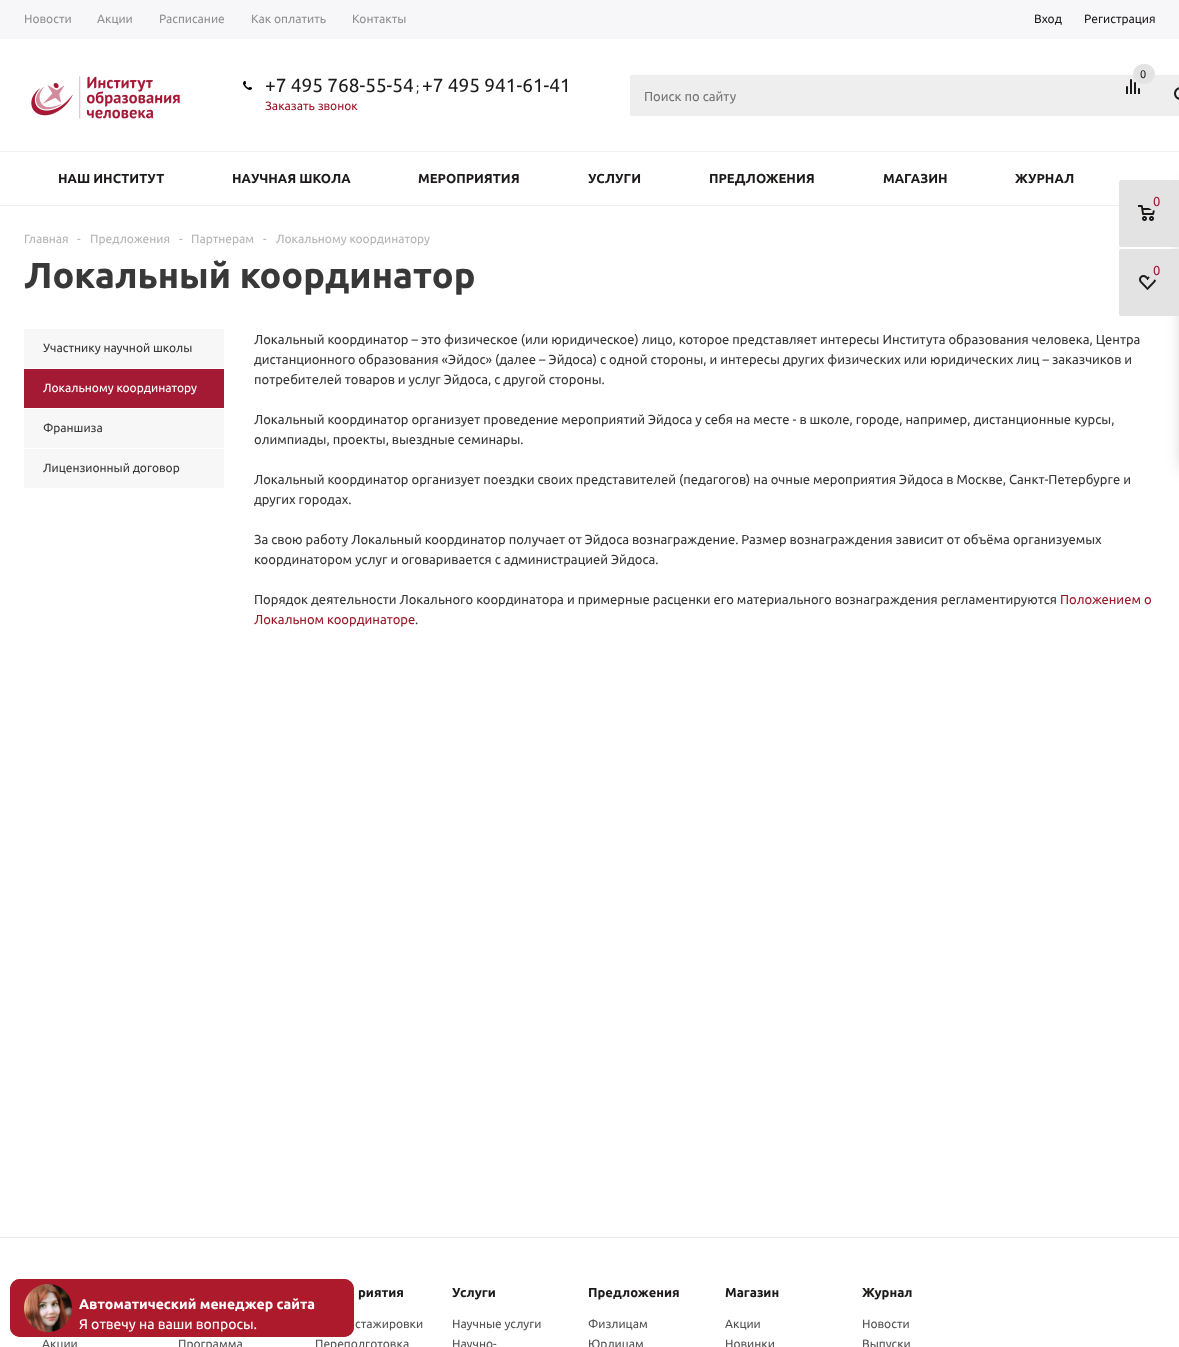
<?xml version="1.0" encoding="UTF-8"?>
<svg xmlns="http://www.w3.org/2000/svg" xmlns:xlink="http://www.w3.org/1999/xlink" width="1179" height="1347">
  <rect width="100%" height="100%" fill="#ffffff" />
  <rect width="1179" height="39" fill="#f7f7f9" />
  <image x="24" y="69" width="163" height="57" xlink:href="image1.png" />
  <image x="243" y="81" width="9" height="9" xlink:href="image2.png" />
  <rect x="630" y="75" width="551" height="41" rx="2" fill="#eeeeee" />
  <image x="1174" y="87" width="5" height="13" xlink:href="image3.png" />
  <image x="1126" y="79" width="14" height="15" xlink:href="image4.png" />
  <rect x="1133" y="64" width="22" height="20" rx="10" fill="#e3e3e3" />
  <rect x="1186" y="186" width="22" height="282" rx="2" fill="#2c2c2c" fill-opacity="0.4" filter="blur(9px)" />
  <path d="M 1121 180 h 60 v 67 h -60 c -1 0 -2 -1 -2 -2 v -63 c 0 -1 1 -2 2 -2 z" fill="#e3e3e3" />
  <image x="1138" y="205" width="17" height="16" xlink:href="image5.png" />
  <rect x="1146" y="191" width="22" height="20" rx="10" fill="#e3e3e3" />
  <path d="M 1121 249 h 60 v 67 h -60 c -1 0 -2 -1 -2 -2 v -63 c 0 -1 1 -2 2 -2 z" fill="#e3e3e3" />
  <image x="1139" y="275" width="17" height="15" xlink:href="image6.png" />
  <rect x="1146" y="260" width="22" height="20" rx="10" fill="#e3e3e3" />
  <rect y="151" width="1179" height="1" fill="#efefef" />
  <rect y="205" width="1119" height="1" fill="#efefef" />
  <rect x="24" y="329" width="200" height="39" fill="#f7f7f7" />
  <rect x="24" y="369" width="200" height="39" fill="#a41933" />
  <rect x="24" y="409" width="200" height="39" fill="#f7f7f7" />
  <rect x="24" y="449" width="200" height="39" fill="#f7f7f7" />
  <rect y="1237" width="1179" height="1" fill="#e7e7e7" />
  <rect x="12" y="1281" width="340" height="54" rx="8" fill="none" stroke="#ad1a2c" stroke-width="4" />
  <rect x="12" y="1281" width="340" height="54" rx="8" fill="#ad1a2c" stroke="#ad1a2c" stroke-width="4" />
  <image x="24" y="1284" width="48" height="48" xlink:href="image7.png" />
  <text x="24" y="23" style="font-family: Ubuntu; font-size: 12px; fill: #919191">Новости</text>
  <text x="97" y="23" style="font-family: Ubuntu; font-size: 12px; fill: #919191">Акции</text>
  <text x="159" y="23" style="font-family: Ubuntu; font-size: 12px; fill: #919191">Расписание</text>
  <text x="251" y="23" style="font-family: Ubuntu; font-size: 12px; fill: #919191">Как оплатить</text>
  <text x="352" y="23" style="font-family: Ubuntu; font-size: 12px; fill: #919191">Контакты</text>
  <text x="1034" y="23" style="font-family: Ubuntu; font-size: 12px; fill: #1d1a1a">Вход</text>
  <text x="1084" y="23" style="font-family: Ubuntu; font-size: 12px; fill: #1d1a1a">Регистрация</text>
  <text x="265" y="92" style="font-family: Ubuntu; font-size: 19px; fill: #1d1a1a">+7 495 768-55-54</text>
  <text x="416" y="92" style="font-family: Ubuntu; font-size: 13px; fill: #383838">;</text>
  <text x="422" y="92" style="font-family: Ubuntu; font-size: 19px; fill: #1d1a1a">+7 495 941-61-41</text>
  <text x="265" y="110" style="font-family: Ubuntu; font-size: 12px; fill: #9b1828">Заказать звонок</text>
  <text x="644" y="101" style="font-family: Ubuntu; font-size: 13px; fill: #757575">Поиск по сайту</text>
  <text x="1140" y="78" style="font-family: Ubuntu; font-size: 11px; fill: #1d1a1a">0</text>
  <text x="1153" y="206" style="font-family: Ubuntu; font-size: 13px; fill: #a51937">0</text>
  <text x="1153" y="275" style="font-family: Ubuntu; font-size: 13px; fill: #a51937">0</text>
  <text x="58" y="183" style="font-family: Ubuntu; font-size: 13px; font-weight: bold; fill: #1d1a1a">НАШ ИНСТИТУТ</text>
  <text x="232" y="183" style="font-family: Ubuntu; font-size: 13px; font-weight: bold; fill: #1d1a1a">НАУЧНАЯ ШКОЛА</text>
  <text x="418" y="183" style="font-family: Ubuntu; font-size: 13px; font-weight: bold; fill: #1d1a1a">МЕРОПРИЯТИЯ</text>
  <text x="588" y="183" style="font-family: Ubuntu; font-size: 13px; font-weight: bold; fill: #1d1a1a">УСЛУГИ</text>
  <text x="709" y="183" style="font-family: Ubuntu; font-size: 13px; font-weight: bold; fill: #1d1a1a">ПРЕДЛОЖЕНИЯ</text>
  <text x="883" y="183" style="font-family: Ubuntu; font-size: 13px; font-weight: bold; fill: #1d1a1a">МАГАЗИН</text>
  <text x="1015" y="183" style="font-family: Ubuntu; font-size: 13px; font-weight: bold; fill: #1d1a1a">ЖУРНАЛ</text>
  <text x="24" y="243" style="font-family: Ubuntu; font-size: 12px; fill: #b6b5b5">Главная</text>
  <text x="77" y="243" style="font-family: Ubuntu; font-size: 12px; fill: #b6b5b5">-</text>
  <text x="90" y="243" style="font-family: Ubuntu; font-size: 12px; fill: #b6b5b5">Предложения</text>
  <text x="179" y="243" style="font-family: Ubuntu; font-size: 12px; fill: #b6b5b5">-</text>
  <text x="191" y="243" style="font-family: Ubuntu; font-size: 12px; fill: #b6b5b5">Партнерам</text>
  <text x="263" y="243" style="font-family: Ubuntu; font-size: 12px; fill: #b6b5b5">-</text>
  <text x="276" y="243" style="font-family: Ubuntu; font-size: 12px; fill: #b6b5b5">Локальному координатору</text>
  <text x="24" y="288" style="font-family: Ubuntu; font-size: 36px; font-weight: bold; fill: #383838">Локальный координатор</text>
  <text x="43" y="352" style="font-family: Ubuntu; font-size: 12px; fill: #383838">Участнику научной школы</text>
  <text x="43" y="392" style="font-family: Ubuntu; font-size: 12px; fill: #ffffff">Локальному координатору</text>
  <text x="43" y="432" style="font-family: Ubuntu; font-size: 12px; fill: #383838">Франшиза</text>
  <text x="43" y="472" style="font-family: Ubuntu; font-size: 12px; fill: #383838">Лицензионный договор</text>
  <text x="254" y="344" style="font-family: Ubuntu; font-size: 13px; fill: #383838">Локальный координатор – это физическое (или юридическое) лицо, которое представляет интересы Института образования человека, Центра</text>
  <text x="254" y="364" style="font-family: Ubuntu; font-size: 13px; fill: #383838">дистанционного образования «Эйдос» (далее – Эйдоса) с одной стороны, и интересы других физических или юридических лиц – заказчиков и</text>
  <text x="254" y="384" style="font-family: Ubuntu; font-size: 13px; fill: #383838">потребителей товаров и услуг Эйдоса, с другой стороны.</text>
  <text x="254" y="424" style="font-family: Ubuntu; font-size: 13px; fill: #383838">Локальный координатор организует проведение мероприятий Эйдоса у себя на месте - в школе, городе, например, дистанционные курсы,</text>
  <text x="254" y="444" style="font-family: Ubuntu; font-size: 13px; fill: #383838">олимпиады, проекты, выездные семинары.</text>
  <text x="254" y="484" style="font-family: Ubuntu; font-size: 13px; fill: #383838">Локальный координатор организует поездки своих представителей (педагогов) на очные мероприятия Эйдоса в Москве, Санкт-Петербурге и</text>
  <text x="254" y="504" style="font-family: Ubuntu; font-size: 13px; fill: #383838">других городах.</text>
  <text x="254" y="544" style="font-family: Ubuntu; font-size: 13px; fill: #383838">За свою работу Локальный координатор получает от Эйдоса вознаграждение. Размер вознаграждения зависит от объёма организуемых</text>
  <text x="254" y="564" style="font-family: Ubuntu; font-size: 13px; fill: #383838">координатором услуг и оговаривается с администрацией Эйдоса.</text>
  <text x="254" y="604" style="font-family: Ubuntu; font-size: 13px; fill: #383838">Порядок деятельности Локального координатора и примерные расценки его материального вознаграждения регламентируются</text>
  <text x="1060" y="604" style="font-family: Ubuntu; font-size: 13px; fill: #9b1828">Положением о</text>
  <text x="254" y="624" style="font-family: Ubuntu; font-size: 13px; fill: #9b1828">Локальном координаторе</text>
  <text x="415" y="624" style="font-family: Ubuntu; font-size: 13px; fill: #383838">.</text>
  <text x="358" y="1297" style="font-family: Ubuntu; font-size: 13px; font-weight: bold; fill: #1d1a1a">риятия</text>
  <text x="452" y="1297" style="font-family: Ubuntu; font-size: 13px; font-weight: bold; fill: #1d1a1a">Услуги</text>
  <text x="588" y="1297" style="font-family: Ubuntu; font-size: 13px; font-weight: bold; fill: #1d1a1a">Предложения</text>
  <text x="725" y="1297" style="font-family: Ubuntu; font-size: 13px; font-weight: bold; fill: #1d1a1a">Магазин</text>
  <text x="862" y="1297" style="font-family: Ubuntu; font-size: 13px; font-weight: bold; fill: #1d1a1a">Журнал</text>
  <text x="42" y="1348" style="font-family: Ubuntu; font-size: 12px; fill: #545454">Акции</text>
  <text x="178" y="1348" style="font-family: Ubuntu; font-size: 12px; fill: #545454">Программа</text>
  <text x="355" y="1328" style="font-family: Ubuntu; font-size: 12px; fill: #545454">стажировки</text>
  <text x="315" y="1348" style="font-family: Ubuntu; font-size: 12px; fill: #545454">Переподготовка</text>
  <text x="452" y="1328" style="font-family: Ubuntu; font-size: 12px; fill: #545454">Научные услуги</text>
  <text x="452" y="1348" style="font-family: Ubuntu; font-size: 12px; fill: #545454">Научно-</text>
  <text x="588" y="1328" style="font-family: Ubuntu; font-size: 12px; fill: #545454">Физлицам</text>
  <text x="588" y="1348" style="font-family: Ubuntu; font-size: 12px; fill: #545454">Юрлицам</text>
  <text x="725" y="1328" style="font-family: Ubuntu; font-size: 12px; fill: #545454">Акции</text>
  <text x="725" y="1348" style="font-family: Ubuntu; font-size: 12px; fill: #545454">Новинки</text>
  <text x="862" y="1328" style="font-family: Ubuntu; font-size: 12px; fill: #545454">Новости</text>
  <text x="862" y="1348" style="font-family: Ubuntu; font-size: 12px; fill: #545454">Выпуски</text>
  <text x="79" y="1309" style="font-family: Ubuntu; font-size: 14px; font-weight: bold; fill: #ffffff">Автоматический менеджер сайта</text>
  <text x="79" y="1329" style="font-family: Ubuntu; font-size: 14px; fill: #ffffff">Я отвечу на ваши вопросы.</text>
</svg>
